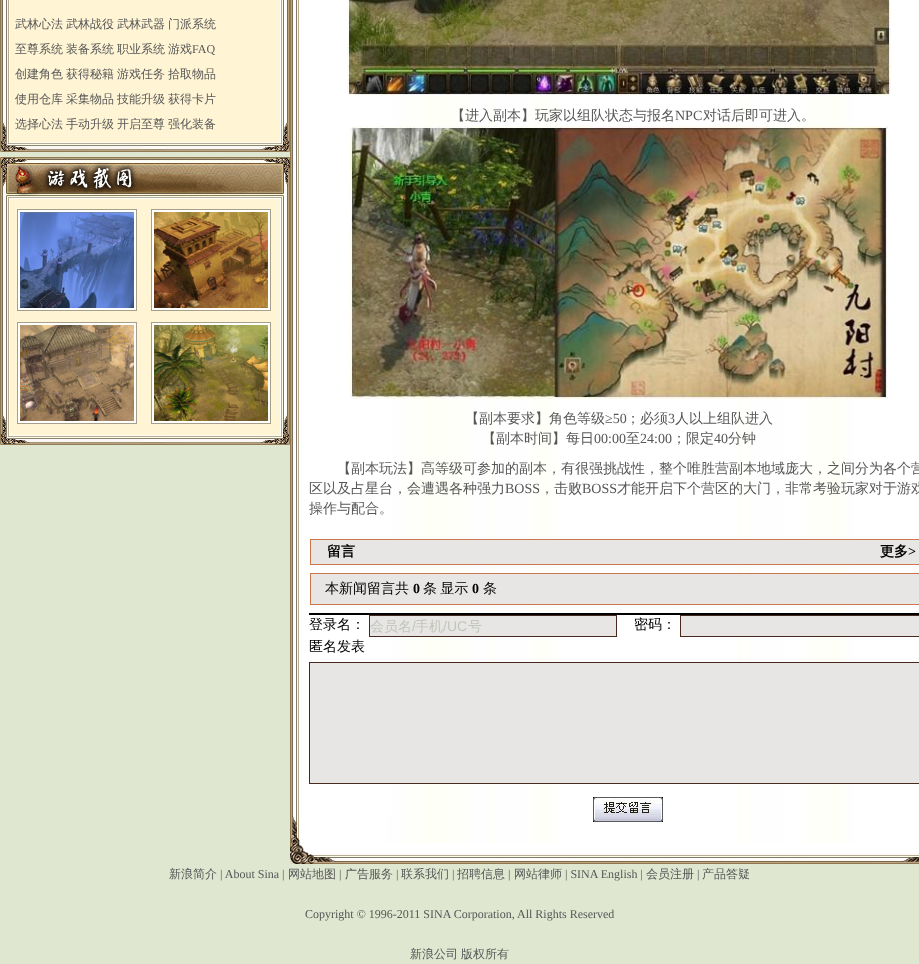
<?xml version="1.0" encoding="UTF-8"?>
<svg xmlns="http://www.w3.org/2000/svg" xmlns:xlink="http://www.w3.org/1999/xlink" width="919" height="964">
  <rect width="100%" height="100%" fill="#dfe7d0" />
  <image x="0" y="0" width="290" height="122" xlink:href="image1.png" />
  <image x="0" y="122" width="290" height="30" xlink:href="image2.png" />
  <image x="0" y="199" width="290" height="216" xlink:href="image3.png" />
  <image x="0" y="415" width="290" height="30" xlink:href="image2.png" />
  <image x="0" y="157" width="290" height="42" xlink:href="image4.png" />
  <rect x="17.5" y="209.5" width="119" height="101" fill="#ffffff" stroke="#a69f89" />
  <image x="20" y="212" width="114" height="96" xlink:href="image5.png" />
  <rect x="151.5" y="209.5" width="119" height="101" fill="#ffffff" stroke="#a69f89" />
  <image x="154" y="212" width="114" height="96" xlink:href="image6.png" />
  <rect x="17.5" y="322.5" width="119" height="101" fill="#ffffff" stroke="#a69f89" />
  <image x="20" y="325" width="114" height="96" xlink:href="image7.png" />
  <rect x="151.5" y="322.5" width="119" height="101" fill="#ffffff" stroke="#a69f89" />
  <image x="154" y="325" width="114" height="96" xlink:href="image8.png" />
  <image x="290" y="0" width="629" height="816" xlink:href="image9.png" />
  <image x="290" y="816" width="629" height="48" xlink:href="image10.png" />
  <image x="347" y="0" width="544" height="96" xlink:href="image11.png" />
  <image x="350" y="126" width="538" height="273" xlink:href="image12.png" />
  <rect x="310.5" y="539.5" width="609" height="25" fill="#e8e6e5" stroke="#cb774e" />
  <rect x="310.5" y="573.5" width="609" height="31" fill="none" stroke="#cb774e" />
  <rect x="311" y="574" width="608" height="30" fill="#e8e6e5" />
  <rect x="309" y="613" width="610" height="2" fill="#000000" />
  <rect x="369.5" y="615.5" width="247" height="21" fill="#e8e6e5" stroke="#49281d" />
  <rect x="680.5" y="615.5" width="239" height="21" fill="#e8e6e5" stroke="#49281d" />
  <rect x="309.5" y="662.5" width="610" height="121" fill="#e8e6e5" stroke="#49281d" />
  <image x="593" y="797" width="70" height="25" xlink:href="image13.png" />
  <text x="15" y="28" style="font-family: WenQuanYi Zen Hei; font-size: 12px; font-weight: 500; fill: #575757">武林心法</text>
  <text x="66" y="28" style="font-family: WenQuanYi Zen Hei; font-size: 12px; font-weight: 500; fill: #575757">武林战役</text>
  <text x="117" y="28" style="font-family: WenQuanYi Zen Hei; font-size: 12px; font-weight: 500; fill: #575757">武林武器</text>
  <text x="168" y="28" style="font-family: WenQuanYi Zen Hei; font-size: 12px; font-weight: 500; fill: #575757">门派系统</text>
  <text x="15" y="53" style="font-family: WenQuanYi Zen Hei; font-size: 12px; font-weight: 500; fill: #575757">至尊系统</text>
  <text x="66" y="53" style="font-family: WenQuanYi Zen Hei; font-size: 12px; font-weight: 500; fill: #575757">装备系统</text>
  <text x="117" y="53" style="font-family: WenQuanYi Zen Hei; font-size: 12px; font-weight: 500; fill: #575757">职业系统</text>
  <text x="168" y="53" style="font-family: WenQuanYi Zen Hei; font-size: 12px; font-weight: 500; fill: #575757">游戏</text>
  <text x="192" y="53" style="font-family: Liberation Serif; font-size: 12px; fill: #575757">FAQ</text>
  <text x="15" y="78" style="font-family: WenQuanYi Zen Hei; font-size: 12px; font-weight: 500; fill: #575757">创建角色</text>
  <text x="66" y="78" style="font-family: WenQuanYi Zen Hei; font-size: 12px; font-weight: 500; fill: #575757">获得秘籍</text>
  <text x="117" y="78" style="font-family: WenQuanYi Zen Hei; font-size: 12px; font-weight: 500; fill: #575757">游戏任务</text>
  <text x="168" y="78" style="font-family: WenQuanYi Zen Hei; font-size: 12px; font-weight: 500; fill: #575757">拾取物品</text>
  <text x="15" y="103" style="font-family: WenQuanYi Zen Hei; font-size: 12px; font-weight: 500; fill: #575757">使用仓库</text>
  <text x="66" y="103" style="font-family: WenQuanYi Zen Hei; font-size: 12px; font-weight: 500; fill: #575757">采集物品</text>
  <text x="117" y="103" style="font-family: WenQuanYi Zen Hei; font-size: 12px; font-weight: 500; fill: #575757">技能升级</text>
  <text x="168" y="103" style="font-family: WenQuanYi Zen Hei; font-size: 12px; font-weight: 500; fill: #575757">获得卡片</text>
  <text x="15" y="128" style="font-family: WenQuanYi Zen Hei; font-size: 12px; font-weight: 500; fill: #575757">选择心法</text>
  <text x="66" y="128" style="font-family: WenQuanYi Zen Hei; font-size: 12px; font-weight: 500; fill: #575757">手动升级</text>
  <text x="117" y="128" style="font-family: WenQuanYi Zen Hei; font-size: 12px; font-weight: 500; fill: #575757">开启至尊</text>
  <text x="168" y="128" style="font-family: WenQuanYi Zen Hei; font-size: 12px; font-weight: 500; fill: #575757">强化装备</text>
  <text x="451" y="120" style="font-family: WenQuanYi Zen Hei; font-size: 14px; font-weight: 500; fill: #575757">【进入副本】玩家以组队状态与报名</text>
  <text x="675" y="120" style="font-family: Liberation Serif; font-size: 14px; fill: #575757">NPC</text>
  <text x="703" y="120" style="font-family: WenQuanYi Zen Hei; font-size: 14px; font-weight: 500; fill: #575757">对话后即可进入。</text>
  <text x="465" y="423" style="font-family: WenQuanYi Zen Hei; font-size: 14px; font-weight: 500; fill: #575757">【副本要求】角色等级</text>
  <text x="605" y="423" style="font-family: Liberation Serif; font-size: 14px; fill: #575757">≥50</text>
  <text x="626" y="423" style="font-family: WenQuanYi Zen Hei; font-size: 14px; font-weight: 500; fill: #575757">；必须</text>
  <text x="668" y="423" style="font-family: Liberation Serif; font-size: 14px; fill: #575757">3</text>
  <text x="675" y="423" style="font-family: WenQuanYi Zen Hei; font-size: 14px; font-weight: 500; fill: #575757">人以上组队进入</text>
  <text x="482" y="443" style="font-family: WenQuanYi Zen Hei; font-size: 14px; font-weight: 500; fill: #575757">【副本时间】每日</text>
  <text x="594" y="443" style="font-family: Liberation Serif; font-size: 14px; fill: #575757">00:00</text>
  <text x="626" y="443" style="font-family: WenQuanYi Zen Hei; font-size: 14px; font-weight: 500; fill: #575757">至</text>
  <text x="640" y="443" style="font-family: Liberation Serif; font-size: 14px; fill: #575757">24:00</text>
  <text x="672" y="443" style="font-family: WenQuanYi Zen Hei; font-size: 14px; font-weight: 500; fill: #575757">；限定</text>
  <text x="714" y="443" style="font-family: Liberation Serif; font-size: 14px; fill: #575757">40</text>
  <text x="728" y="443" style="font-family: WenQuanYi Zen Hei; font-size: 14px; font-weight: 500; fill: #575757">分钟</text>
  <text x="337" y="473" style="font-family: WenQuanYi Zen Hei; font-size: 14px; font-weight: 500; fill: #575757">【副本玩法】高等级可参加的副本，有很强挑战性，整个唯胜营副本地域庞大，之间分为各个营</text>
  <text x="309" y="493" style="font-family: WenQuanYi Zen Hei; font-size: 14px; font-weight: 500; fill: #575757">区以及占星台，会遭遇各种强力</text>
  <text x="505" y="493" style="font-family: Liberation Serif; font-size: 14px; fill: #575757">BOSS</text>
  <text x="540" y="493" style="font-family: WenQuanYi Zen Hei; font-size: 14px; font-weight: 500; fill: #575757">，击败</text>
  <text x="582" y="493" style="font-family: Liberation Serif; font-size: 14px; fill: #575757">BOSS</text>
  <text x="617" y="493" style="font-family: WenQuanYi Zen Hei; font-size: 14px; font-weight: 500; fill: #575757">才能开启下个营区的大门，非常考验玩家对于游戏</text>
  <text x="309" y="513" style="font-family: WenQuanYi Zen Hei; font-size: 14px; font-weight: 500; fill: #575757">操作与配合。</text>
  <text x="327" y="556" style="font-family: WenQuanYi Zen Hei; font-size: 14px; font-weight: bold; fill: #000000">留言</text>
  <text x="880" y="556" style="font-family: WenQuanYi Zen Hei; font-size: 14px; font-weight: bold; fill: #000000">更多</text>
  <text x="908" y="556" style="font-family: Liberation Serif; font-size: 14px; font-weight: bold; fill: #000000">&gt;</text>
  <text x="325" y="593" style="font-family: WenQuanYi Zen Hei; font-size: 14px; font-weight: 500; fill: #000000">本新闻留言共</text>
  <text x="413" y="593" style="font-family: Liberation Serif; font-size: 14px; font-weight: bold; fill: #000000">0</text>
  <text x="423" y="593" word-spacing="-1" style="font-family: WenQuanYi Zen Hei; font-size: 14px; font-weight: 500; fill: #000000">条 显示</text>
  <text x="472" y="593" style="font-family: Liberation Serif; font-size: 14px; font-weight: bold; fill: #000000">0</text>
  <text x="483" y="593" style="font-family: WenQuanYi Zen Hei; font-size: 14px; font-weight: 500; fill: #000000">条</text>
  <text x="309" y="629" style="font-family: WenQuanYi Zen Hei; font-size: 14px; font-weight: 500; fill: #000000">登录名：</text>
  <text x="370" y="631" style="font-family: WenQuanYi Zen Hei; font-size: 14px; font-weight: 500; fill: #c0c6ba">会员名</text>
  <text x="412" y="631" style="font-family: Liberation Sans; font-size: 14px; fill: #c0c6ba">/</text>
  <text x="415" y="631" style="font-family: WenQuanYi Zen Hei; font-size: 14px; font-weight: 500; fill: #c0c6ba">手机</text>
  <text x="443" y="631" style="font-family: Liberation Sans; font-size: 14px; fill: #c0c6ba">/UC</text>
  <text x="468" y="631" style="font-family: WenQuanYi Zen Hei; font-size: 14px; font-weight: 500; fill: #c0c6ba">号</text>
  <text x="634" y="629" style="font-family: WenQuanYi Zen Hei; font-size: 14px; font-weight: 500; fill: #000000">密码：</text>
  <text x="309" y="651" style="font-family: WenQuanYi Zen Hei; font-size: 14px; font-weight: 500; fill: #000000">匿名发表</text>
  <text x="169" y="878" style="font-family: WenQuanYi Zen Hei; font-size: 12px; font-weight: 500; fill: #575757">新浪简介</text>
  <text x="220" y="878" style="font-family: Liberation Serif; font-size: 12px; fill: #575757">| About Sina |</text>
  <text x="288" y="878" style="font-family: WenQuanYi Zen Hei; font-size: 12px; font-weight: 500; fill: #575757">网站地图</text>
  <text x="339" y="878" style="font-family: Liberation Serif; font-size: 12px; fill: #575757">|</text>
  <text x="345" y="878" style="font-family: WenQuanYi Zen Hei; font-size: 12px; font-weight: 500; fill: #575757">广告服务</text>
  <text x="396" y="878" style="font-family: Liberation Serif; font-size: 12px; fill: #575757">|</text>
  <text x="401" y="878" style="font-family: WenQuanYi Zen Hei; font-size: 12px; font-weight: 500; fill: #575757">联系我们</text>
  <text x="452" y="878" style="font-family: Liberation Serif; font-size: 12px; fill: #575757">|</text>
  <text x="457" y="878" style="font-family: WenQuanYi Zen Hei; font-size: 12px; font-weight: 500; fill: #575757">招聘信息</text>
  <text x="508" y="878" style="font-family: Liberation Serif; font-size: 12px; fill: #575757">|</text>
  <text x="514" y="878" style="font-family: WenQuanYi Zen Hei; font-size: 12px; font-weight: 500; fill: #575757">网站律师</text>
  <text x="565" y="878" style="font-family: Liberation Serif; font-size: 12px; fill: #575757">| SINA English |</text>
  <text x="646" y="878" style="font-family: WenQuanYi Zen Hei; font-size: 12px; font-weight: 500; fill: #575757">会员注册</text>
  <text x="697" y="878" style="font-family: Liberation Serif; font-size: 12px; fill: #575757">|</text>
  <text x="702" y="878" style="font-family: WenQuanYi Zen Hei; font-size: 12px; font-weight: 500; fill: #575757">产品答疑</text>
  <text x="305" y="918" style="font-family: Liberation Serif; font-size: 12px; fill: #575757">Copyright © 1996-2011 SINA Corporation, All Rights Reserved</text>
  <text x="410" y="958" style="font-family: WenQuanYi Zen Hei; font-size: 12px; font-weight: 500; fill: #575757">新浪公司</text>
  <text x="461" y="958" style="font-family: WenQuanYi Zen Hei; font-size: 12px; font-weight: 500; fill: #575757">版权所有</text>
</svg>
